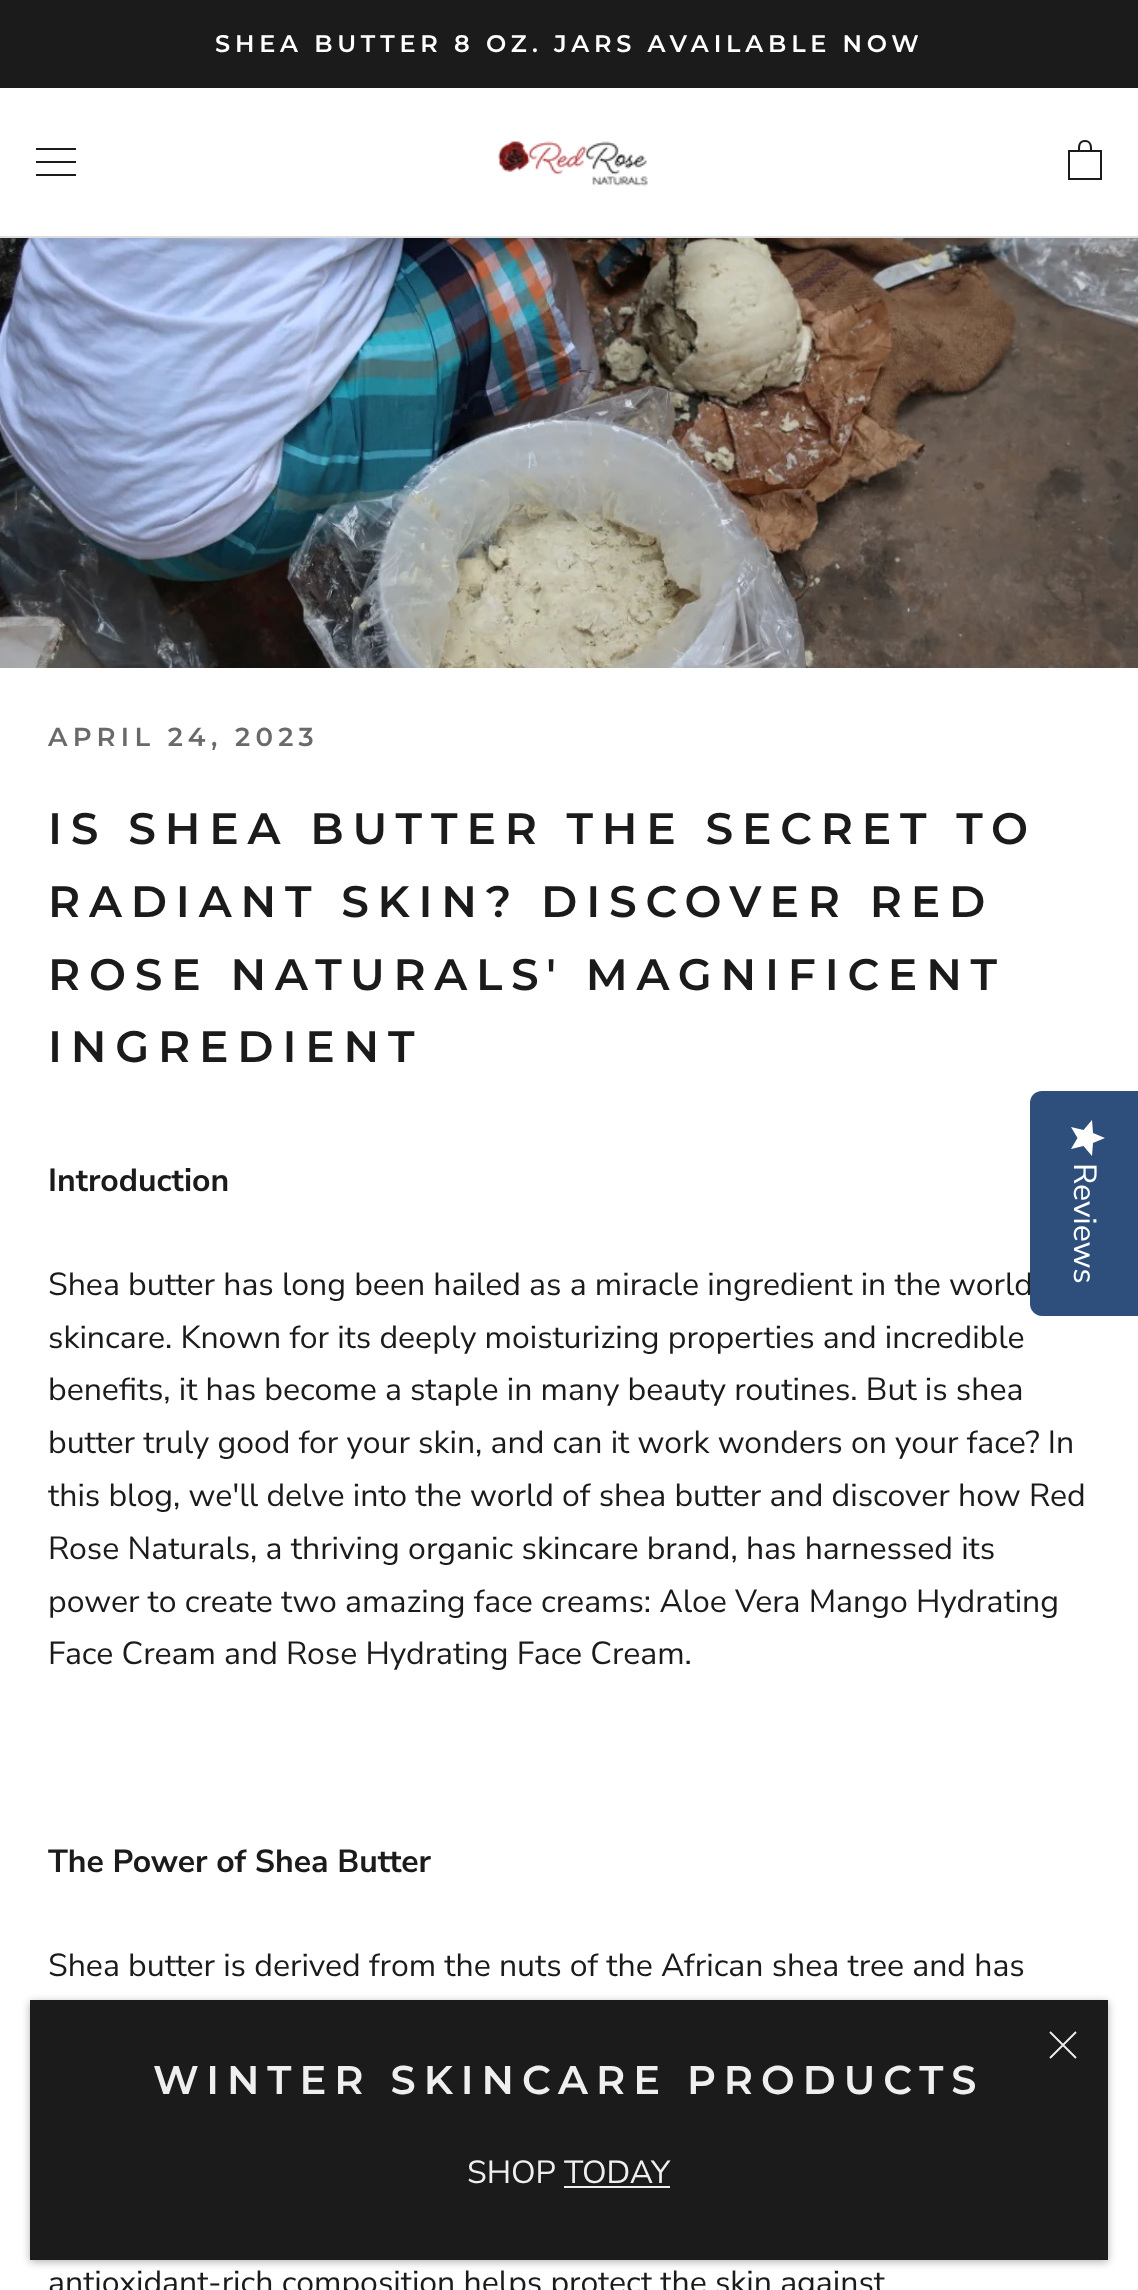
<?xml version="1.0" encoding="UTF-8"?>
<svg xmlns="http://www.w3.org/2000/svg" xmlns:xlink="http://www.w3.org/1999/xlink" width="1138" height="2290">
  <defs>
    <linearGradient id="g1" gradientUnits="userSpaceOnUse" x1="1105" y1="1120" x2="1105" y2="1156"><stop offset="1" stop-color="#ffffff" /><stop offset="1" stop-color="#eaeaea" /></linearGradient>
  </defs>
  <rect width="100%" height="100%" fill="#ffffff" />
  <rect width="1138" height="88" fill="#1c1b1b" />
  <rect y="236" width="1138" height="2" fill="#dddddd" />
  <path d="M 36 176 v -2 h 40 v 2 z m 0 -15 h 40 v 2 h -40 z m 0 -13 h 40 v 2 h -40 z" fill="#1c1b1b" />
  <image x="498" y="140" width="150" height="46" xlink:href="image1.png" />
  <image x="1068" y="140" width="34" height="40" xlink:href="image2.png" />
  <image x="0" y="238" width="1138" height="430" xlink:href="image3.png" />
  <rect x="30" y="2002" width="1078" height="260" fill="#000000" fill-opacity="0.3" filter="blur(4px)" />
  <rect x="30" y="2000" width="1078" height="260" fill="#1c1b1b" />
  <path d="M 1076 2032 l -26 26 m 26 0 l -26 -26" fill="none" stroke="#efefef" stroke-width="1.9" />
  <rect x="564" y="2186" width="106" height="2" fill="#efefef" />
  <text x="215" y="52" style="font-family: Montserrat; font-size: 24px; font-weight: 600; letter-spacing: 4.8px; fill: #ffffff">SHEA BUTTER 8 OZ. JARS AVAILABLE NOW</text>
  <text x="48" y="746" style="font-family: Montserrat; font-size: 26px; font-weight: 600; letter-spacing: 5.25px; fill: #6a6a6a">APRIL 24, 2023</text>
  <text x="48" y="844" style="font-family: Montserrat; font-size: 44px; font-weight: 600; letter-spacing: 8.8px; fill: #1c1b1b">IS SHEA BUTTER THE SECRET TO</text>
  <text x="48" y="917" style="font-family: Montserrat; font-size: 44px; font-weight: 600; letter-spacing: 8.8px; fill: #1c1b1b">RADIANT SKIN? DISCOVER RED</text>
  <text x="48" y="990" style="font-family: Montserrat; font-size: 44px; font-weight: 600; letter-spacing: 8.8px; fill: #1c1b1b">ROSE NATURALS' MAGNIFICENT</text>
  <text x="48" y="1062" style="font-family: Montserrat; font-size: 44px; font-weight: 600; letter-spacing: 8.8px; fill: #1c1b1b">INGREDIENT</text>
  <text x="48" y="1191" style="font-family: Nunito Sans; font-size: 32px; font-weight: bold; fill: #1c1b1b">Introduction</text>
  <text x="48" y="1295" style="font-family: Nunito Sans; font-size: 32px; fill: #1c1b1b">Shea butter has long been hailed as a miracle ingredient in the world</text>
  <text x="48" y="1348" style="font-family: Nunito Sans; font-size: 32px; fill: #1c1b1b">skincare. Known for its deeply moisturizing properties and incredible</text>
  <text x="48" y="1400" style="font-family: Nunito Sans; font-size: 32px; fill: #1c1b1b">benefits, it has become a staple in many beauty routines. But is shea</text>
  <text x="48" y="1453" style="font-family: Nunito Sans; font-size: 32px; fill: #1c1b1b">butter truly good for your skin, and can it work wonders on your face? In</text>
  <text x="48" y="1506" style="font-family: Nunito Sans; font-size: 32px; fill: #1c1b1b">this blog, we'll delve into the world of shea butter and discover how Red</text>
  <text x="48" y="1559" style="font-family: Nunito Sans; font-size: 32px; fill: #1c1b1b">Rose Naturals, a thriving organic skincare brand, has harnessed its</text>
  <text x="48" y="1612" style="font-family: Nunito Sans; font-size: 32px; fill: #1c1b1b">power to create two amazing face creams: Aloe Vera Mango Hydrating</text>
  <text x="48" y="1664" style="font-family: Nunito Sans; font-size: 32px; fill: #1c1b1b">Face Cream and Rose Hydrating Face Cream.</text>
  <text x="48" y="1872" style="font-family: Nunito Sans; font-size: 32px; font-weight: bold; fill: #1c1b1b">The Power of Shea Butter</text>
  <text x="48" y="1976" style="font-family: Nunito Sans; font-size: 32px; fill: #1c1b1b">Shea butter is derived from the nuts of the African shea tree and has</text>
  <text x="48" y="2293" style="font-family: Nunito Sans; font-size: 32px; fill: #1c1b1b">antioxidant-rich composition helps protect the skin against</text>
  <path d="M 1138 1091 v 225 h -96 c -7 0 -12 -6 -12 -12 v -201 c 0 -7 5 -12 12 -12 z" fill="#2e4f7c" />
  <path d="M 1077.5 1138 l -6.5 11 l 12.5 -3 l 8.5 10 l 1 -13 l 12 -5 l -12 -5 l -1 -13 l -8.5 10 l -12.5 -3 z" fill="url(#g1)" />
  <text x="1074" y="1163" transform="rotate(90 1074 1163)" style="font-family: Nunito Sans; font-size: 32px; fill: #ffffff">Reviews</text>
  <text x="153" y="2094" style="font-family: Montserrat; font-size: 40px; font-weight: 600; letter-spacing: 8px; fill: #efefef">WINTER SKINCARE PRODUCTS</text>
  <text x="467" y="2183" style="font-family: Nunito Sans; font-size: 32px; fill: #efefef">SHOP TODAY</text>
</svg>
